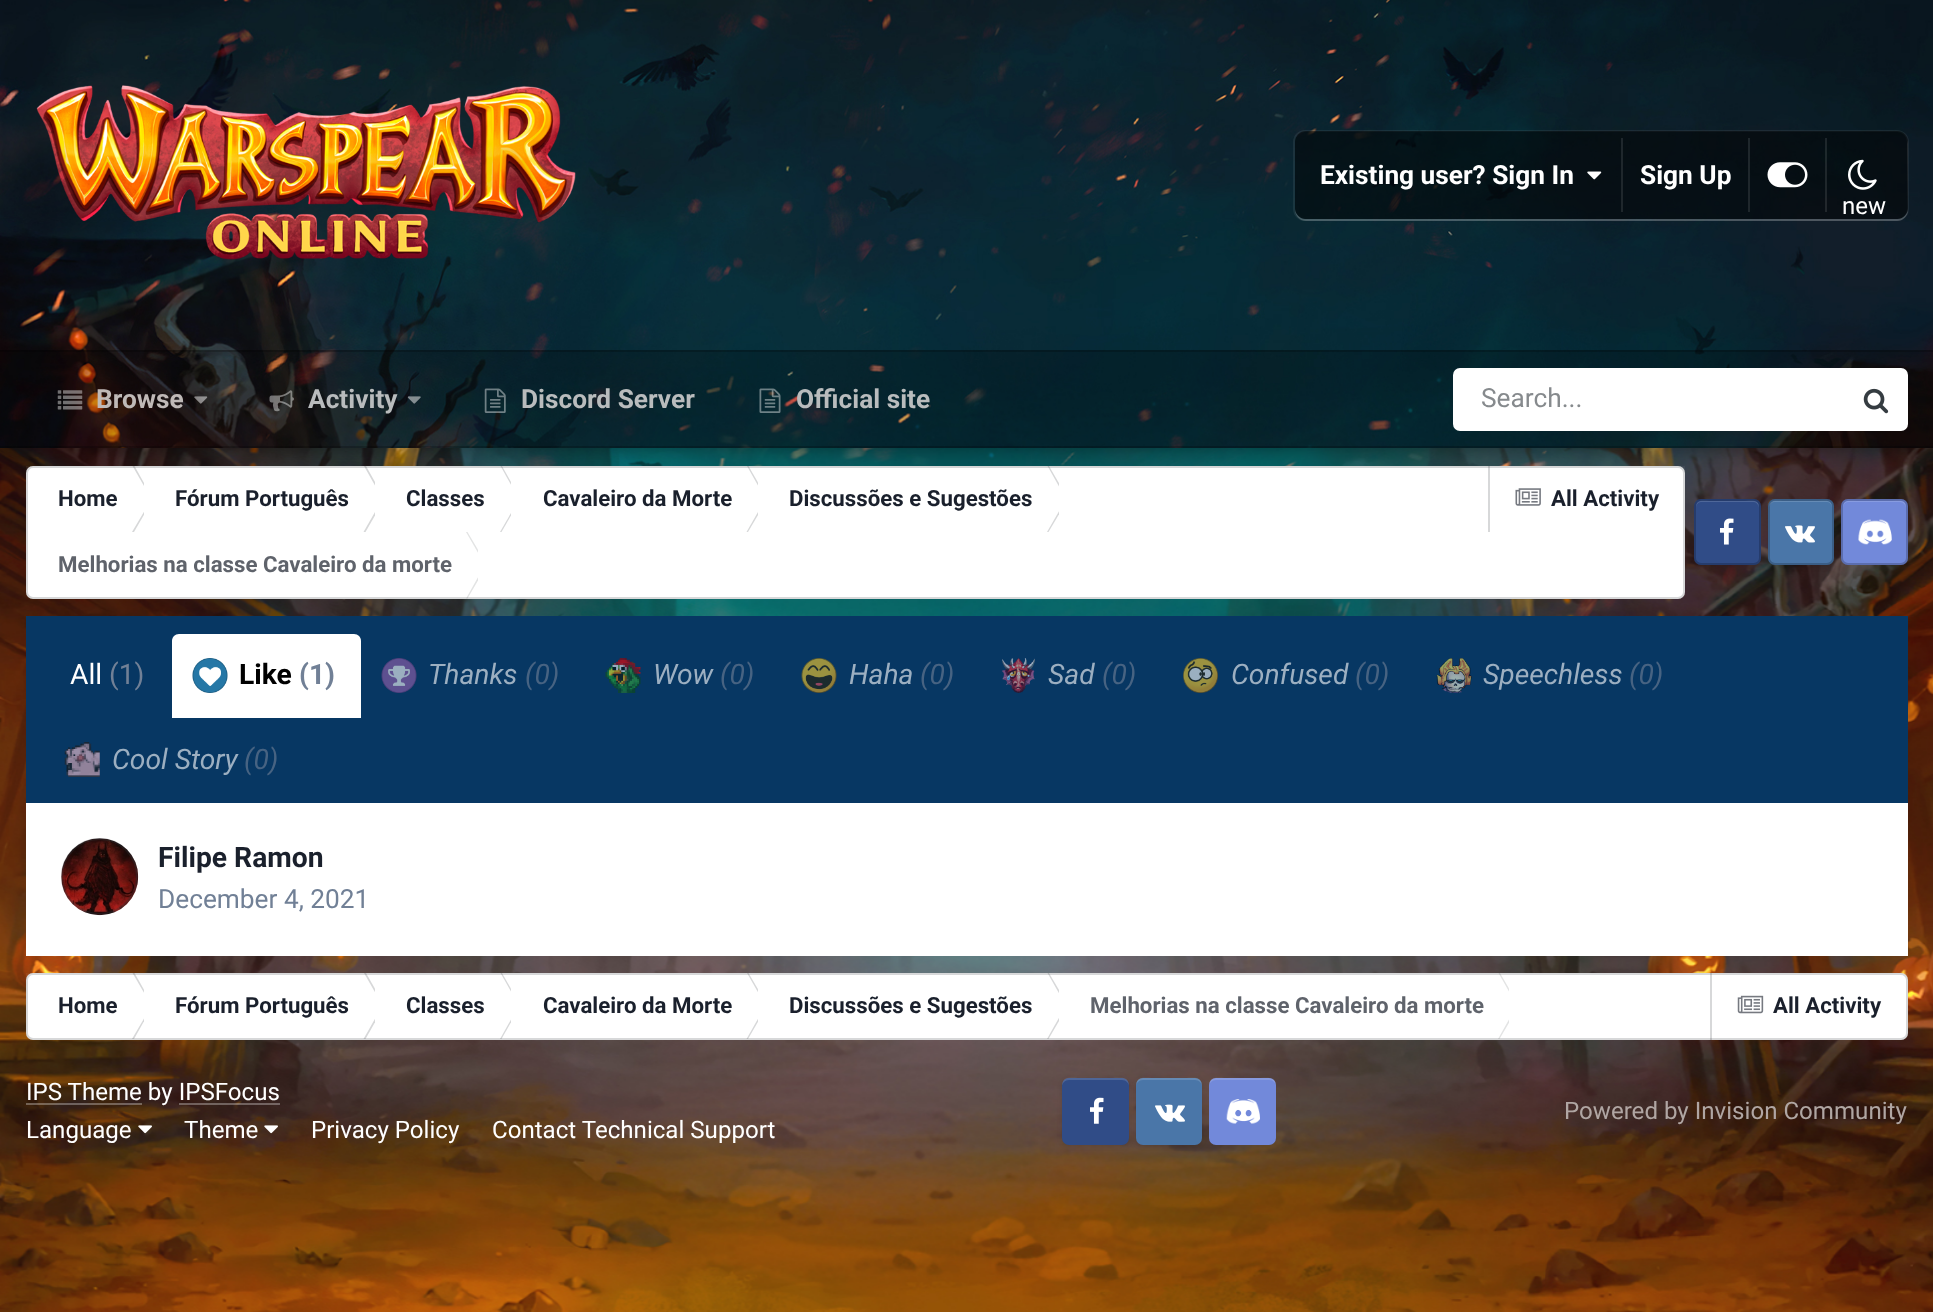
<?xml version="1.0" encoding="UTF-8"?>
<svg xmlns="http://www.w3.org/2000/svg" xmlns:xlink="http://www.w3.org/1999/xlink" width="1933" height="1312">
  <defs>
    <linearGradient id="g1" gradientUnits="userSpaceOnUse" x1="856" y1="465" x2="856" y2="599"><stop offset="0" stop-color="#ffffff" stop-opacity="0.05" /><stop offset="1" stop-color="#ffffff" stop-opacity="0" /></linearGradient>
    <clipPath id="clip1"><rect x="26" y="466" width="118" height="66" /></clipPath>
    <clipPath id="clip2"><rect x="144" y="466" width="231" height="66" /></clipPath>
    <clipPath id="clip3"><rect x="375" y="466" width="136" height="66" /></clipPath>
    <clipPath id="clip4"><rect x="511" y="466" width="247" height="66" /></clipPath>
    <clipPath id="clip5"><rect x="758" y="466" width="301" height="66" /></clipPath>
    <clipPath id="clip6"><rect x="26" y="532" width="452" height="67" /></clipPath>
    <linearGradient id="g2" gradientUnits="userSpaceOnUse" x1="967" y1="973" x2="967" y2="1040"><stop offset="0" stop-color="#ffffff" stop-opacity="0.05" /><stop offset="1" stop-color="#ffffff" stop-opacity="0" /></linearGradient>
    <clipPath id="clip7"><rect x="26" y="973" width="118" height="67" /></clipPath>
    <clipPath id="clip8"><rect x="144" y="973" width="231" height="67" /></clipPath>
    <clipPath id="clip9"><rect x="375" y="973" width="136" height="67" /></clipPath>
    <clipPath id="clip10"><rect x="511" y="973" width="247" height="67" /></clipPath>
    <clipPath id="clip11"><rect x="758" y="973" width="301" height="67" /></clipPath>
    <clipPath id="clip12"><rect x="1059" y="973" width="450" height="67" /></clipPath>
  </defs>
  <rect width="100%" height="100%" fill="#ffffff" />
  <image x="0" y="448" width="1933" height="864" xlink:href="image1.png" />
  <rect x="26" y="466" width="1659" height="133" rx="7" fill="#ffffff" />
  <rect x="26" y="466" width="1659" height="5" fill="url(#g1)" />
  <g clip-path="url(#clip1)">
    <path d="M 134.5 466 h -2 l 19 33 h 1.5 z" fill="#d7d8d9" />
    <path d="M 132 532 h 2 l 19 -33 h -1.5 z" fill="#d7d8d9" />
  </g>
  <g clip-path="url(#clip2)">
    <path d="M 366 466 h -2 l 18.5 33 h 2 z" fill="#d7d8d9" />
    <path d="M 363.5 532 h 2 l 19 -33 h -2 z" fill="#d7d8d9" />
  </g>
  <g clip-path="url(#clip3)">
    <path d="M 502 466 h -1.5 l 18.5 33 h 1.5 z" fill="#d7d8d9" />
    <path d="M 500 532 h 1.5 l 19 -33 h -1.5 z" fill="#d7d8d9" />
  </g>
  <g clip-path="url(#clip4)">
    <path d="M 748.5 466 h -1.5 l 18.5 33 h 2 z" fill="#d7d8d9" />
    <path d="M 746.5 532 h 1.5 l 19.5 -33 h -2 z" fill="#d7d8d9" />
  </g>
  <g clip-path="url(#clip5)">
    <path d="M 1049 466 h -1.5 l 18.5 33 h 2 z" fill="#d7d8d9" />
    <path d="M 1047 532 h 1.5 l 19.5 -33 h -2 z" fill="#d7d8d9" />
  </g>
  <g clip-path="url(#clip6)">
    <path d="M 466 532 h 1.5 l 19.5 33 h -2 z" fill="#e3e4e4" />
    <path d="M 466 598.5 h 1.5 l 19.5 -33.5 h -2 z" fill="#e3e4e4" />
  </g>
  <rect x="1488" y="466" width="2" height="66" fill="#d7d8d9" />
  <image x="1515" y="488" width="26" height="18" xlink:href="image14.png" />
  <rect x="27" y="467" width="1657" height="131" rx="6" fill="none" stroke="#353c41" stroke-opacity="0.2" stroke-width="2" />
  <rect y="2" width="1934" height="448" fill="#000000" fill-opacity="0.35" filter="blur(9px)" />
  <image x="0" y="0" width="1933" height="448" xlink:href="image2.png" />
  <image x="36" y="85" width="540" height="175" xlink:href="image3.png" />
  <rect x="1294" y="131" width="614" height="89" rx="11" fill="none" stroke="#ffffff" stroke-opacity="0.07" stroke-width="2" />
  <path d="M 1295 208 v 2 c 0 6 5 11 11 11 h 591 c 6 0 11 -5 11 -11 v -66 l -1 -4 l 1 68 c 0 6 -5 11 -11 11 h -591 c -6 0 -11 -5 -11 -11 z" fill="#ffffff" fill-opacity="0.2" />
  <rect x="1295" y="131" width="613" height="88" rx="11" fill="#000000" fill-opacity="0.5" />
  <image x="1587" y="171" width="15" height="9" xlink:href="image4.png" />
  <rect x="1621" y="138" width="2" height="74" fill="#1f272c" />
  <rect x="1748" y="138" width="2" height="74" fill="#1f272c" />
  <image x="1767" y="162" width="41" height="26" xlink:href="image5.png" />
  <rect x="1825" y="138" width="2" height="74" fill="#ffffff" fill-opacity="0.1" />
  <image x="1848" y="159" width="29" height="31" xlink:href="image6.png" />
  <rect y="350" width="1933" height="98" fill="#000000" fill-opacity="0.2" />
  <rect y="350" width="1933" height="2" fill="#000000" fill-opacity="0.2" />
  <rect y="446" width="1933" height="2" fill="#000000" fill-opacity="0.2" />
  <image x="57" y="390" width="26" height="20" xlink:href="image7.png" />
  <image x="194" y="396" width="14" height="8" xlink:href="image8.png" />
  <image x="269" y="390" width="25" height="22" xlink:href="image9.png" />
  <image x="407" y="396" width="14" height="8" xlink:href="image10.png" />
  <image x="484" y="388" width="22" height="25" xlink:href="image11.png" />
  <image x="759" y="388" width="22" height="25" xlink:href="image12.png" />
  <rect x="1453" y="368" width="455" height="63" rx="7" fill="#ffffff" />
  <image x="1863" y="388" width="26" height="26" xlink:href="image13.png" />
  <rect x="1694" y="499" width="67" height="66" rx="7" fill="#304c87" />
  <path d="M 1701 502 c -3 0 -5 3 -5 6 c 0 -9 6 -7 14 -7 h 35 c 8 0 14 -2 14 7 c 0 -3 -3 -6 -5 -6 z" fill="#4f6799" />
  <image x="1720" y="518" width="14" height="27" xlink:href="image15.png" />
  <rect x="1695" y="500" width="65" height="64" rx="6" fill="none" stroke="#000000" stroke-opacity="0.2" stroke-width="2" />
  <rect x="1768" y="501" width="66" height="66" rx="7" fill="#000000" fill-opacity="0.1" filter="blur(2.5px)" />
  <rect x="1768" y="499" width="66" height="66" rx="7" fill="#4a76a8" />
  <path d="M 1774 502 c -2 0 -5 3 -5 6 c 0 -9 6 -7 14 -7 h 35 c 8 0 14 -2 14 7 c 0 -3 -2 -6 -5 -6 z" fill="#658bb5" />
  <image x="1785" y="525" width="30" height="18" xlink:href="image16.png" />
  <rect x="1769" y="500" width="64" height="64" rx="6" fill="none" stroke="#000000" stroke-opacity="0.2" stroke-width="2" />
  <rect x="1841" y="499" width="67" height="66" rx="7" fill="#7289da" />
  <path d="M 1848 502 c -3 0 -5 3 -5 6 c 0 -9 6 -7 14 -7 h 35 c 8 0 14 -2 14 7 c 0 -3 -3 -6 -6 -6 z" fill="#879be0" />
  <image x="1858" y="519" width="34" height="26" xlink:href="image17.png" />
  <rect x="1842" y="500" width="65" height="64" rx="6" fill="none" stroke="#000000" stroke-opacity="0.2" stroke-width="2" />
  <rect x="26" y="616" width="1882" height="187" fill="#073763" />
  <path d="M 179 634 h 175 c 4 0 7 3 7 7 v 77 h -189 v -77 c 0 -4 3 -7 7 -7 z" fill="#ffffff" />
  <image x="192" y="658" width="36" height="35" xlink:href="image18.png" />
  <image x="381" y="658" width="36" height="35" xlink:href="image19.png" />
  <image x="605" y="658" width="36" height="35" xlink:href="image20.png" />
  <image x="801" y="658" width="36" height="35" xlink:href="image21.png" />
  <image x="1002" y="658" width="33" height="35" xlink:href="image22.png" />
  <image x="1183" y="658" width="35" height="35" xlink:href="image23.png" />
  <image x="1436" y="658" width="36" height="35" xlink:href="image24.png" />
  <image x="64" y="742" width="36" height="35" xlink:href="image25.png" />
  <rect x="26" y="803" width="1882" height="153" fill="#ffffff" />
  <image x="61" y="838" width="78" height="78" xlink:href="image26.png" />
  <circle cx="99.5" cy="876.5" r="37.5" fill="none" stroke="#353c41" stroke-opacity="0.3" stroke-width="2" />
  <rect x="26" y="973" width="1882" height="67" rx="7" fill="#ffffff" />
  <rect x="26" y="973" width="1882" height="5" fill="url(#g2)" />
  <g clip-path="url(#clip7)">
    <path d="M 134.5 973 h -2 l 19 32.5 h 1.5 z" fill="#d7d8d9" />
    <path d="M 132 1039 h 2 l 19 -33.5 h -1.5 z" fill="#d7d8d9" />
  </g>
  <g clip-path="url(#clip8)">
    <path d="M 366 973 h -2 l 18.5 32.5 h 2 z" fill="#d7d8d9" />
    <path d="M 363.5 1039 h 2 l 19 -33.5 h -2 z" fill="#d7d8d9" />
  </g>
  <g clip-path="url(#clip9)">
    <path d="M 502 973 h -1.5 l 18.5 32.5 h 1.5 z" fill="#d7d8d9" />
    <path d="M 500 1039 h 1.5 l 19 -33.5 h -1.5 z" fill="#d7d8d9" />
  </g>
  <g clip-path="url(#clip10)">
    <path d="M 748.5 973 h -1.5 l 18.5 32.5 h 2 z" fill="#d7d8d9" />
    <path d="M 746.5 1039 h 1.5 l 19.5 -33.5 h -2 z" fill="#d7d8d9" />
  </g>
  <g clip-path="url(#clip11)">
    <path d="M 1049 973 h -1.5 l 18.5 32.5 h 2 z" fill="#d7d8d9" />
    <path d="M 1047 1039 h 1.5 l 19.5 -33.5 h -2 z" fill="#d7d8d9" />
  </g>
  <g clip-path="url(#clip12)">
    <path d="M 1500 973 h -1.5 l 18.5 32.5 h 2 z" fill="#e3e4e4" />
    <path d="M 1498 1039 h 1.5 l 19.5 -33.5 h -2 z" fill="#e3e4e4" />
  </g>
  <rect x="1710" y="973" width="2" height="67" fill="#d7d8d9" />
  <image x="1737" y="995" width="27" height="19" xlink:href="image27.png" />
  <rect x="27" y="974" width="1880" height="65" rx="6" fill="none" stroke="#353c41" stroke-opacity="0.2" stroke-width="2" />
  <rect x="26" y="1103" width="116" height="2" fill="#ffffff" fill-opacity="0.3" />
  <image x="138" y="1125" width="14" height="9" xlink:href="image28.png" />
  <image x="264" y="1125" width="14" height="9" xlink:href="image29.png" />
  <rect x="1062" y="1080" width="67" height="66" rx="7" fill="#000000" fill-opacity="0.1" filter="blur(2.5px)" />
  <rect x="1062" y="1078" width="67" height="67" rx="7" fill="#304c87" />
  <path d="M 1069 1080 c -4 0 -7 3 -7 7 c 0 -11 7 -9 16 -9 h 35 c 9 0 16 -2 16 9 c 0 -4 -3 -7 -7 -7 z" fill="#ffffff" fill-opacity="0.15" />
  <image x="1090" y="1097" width="14" height="27" xlink:href="image30.png" />
  <rect x="1136" y="1080" width="66" height="66" rx="7" fill="#000000" fill-opacity="0.1" filter="blur(2.5px)" />
  <rect x="1136" y="1078" width="66" height="67" rx="7" fill="#4a76a8" />
  <path d="M 1143 1080 c -4 0 -7 3 -7 7 c 0 -11 7 -9 16 -9 h 34 c 9 0 16 -2 16 9 c 0 -4 -3 -7 -7 -7 z" fill="#ffffff" fill-opacity="0.15" />
  <image x="1155" y="1104" width="30" height="18" xlink:href="image31.png" />
  <rect x="1209" y="1078" width="67" height="67" rx="7" fill="#7289da" />
  <path d="M 1216 1080 c -4 0 -7 3 -7 7 c 0 -11 7 -9 16 -9 h 35 c 9 0 16 -2 16 9 c 0 -4 -3 -7 -7 -7 z" fill="#ffffff" fill-opacity="0.15" />
  <image x="1226" y="1099" width="34" height="25" xlink:href="image32.png" />
  <text x="1320" y="184" style="font-family: Roboto; font-size: 26.25px; font-weight: bold; fill: #ffffff">Existing user? Sign In</text>
  <text x="1640" y="184" style="font-family: Roboto; font-size: 26.25px; font-weight: bold; fill: #ffffff">Sign Up</text>
  <text x="1842" y="214" style="font-family: Roboto; font-size: 24px; fill: #ffffff">new</text>
  <text x="96" y="408" style="font-family: Roboto; font-size: 26.25px; font-weight: bold; fill: #bfb9b7">Browse</text>
  <text x="308" y="408" style="font-family: Roboto; font-size: 26.25px; font-weight: bold; fill: #b9bcbd">Activity</text>
  <text x="521" y="408" style="font-family: Roboto; font-size: 26.25px; font-weight: bold; fill: #b9bcbd">Discord Server</text>
  <text x="796" y="408" style="font-family: Roboto; font-size: 26.25px; font-weight: bold; fill: #b9bcbd">Official site</text>
  <text x="1481" y="407" style="font-family: Roboto; font-size: 26.25px; fill: #868a8d">Search...</text>
  <text x="58" y="506" style="font-family: Roboto; font-size: 22.25px; font-weight: bold; fill: #1a202c">Home</text>
  <text x="175" y="506" style="font-family: Roboto; font-size: 22.25px; font-weight: bold; fill: #1a202c">Fórum Português</text>
  <text x="406" y="506" style="font-family: Roboto; font-size: 22.25px; font-weight: bold; fill: #1a202c">Classes</text>
  <text x="543" y="506" style="font-family: Roboto; font-size: 22.25px; font-weight: bold; fill: #1a202c">Cavaleiro da Morte</text>
  <text x="789" y="506" style="font-family: Roboto; font-size: 22.25px; font-weight: bold; fill: #1a202c">Discussões e Sugestões</text>
  <text x="58" y="572" style="font-family: Roboto; font-size: 22.25px; font-weight: bold; fill: #5f636b">Melhorias na classe Cavaleiro da morte</text>
  <text x="1551" y="506" style="font-family: Roboto; font-size: 22.25px; font-weight: bold; fill: #1a202c">All Activity</text>
  <text x="70" y="684" style="font-family: Roboto; font-size: 28.25px; fill: #ffffff">All</text>
  <text x="109" y="684" style="font-family: Roboto; font-size: 28.25px; fill: #718096">(1)</text>
  <text x="239" y="684" style="font-family: Roboto; font-size: 28.25px; font-weight: bold; fill: #000000">Like</text>
  <text x="299" y="684" style="font-family: Roboto; font-size: 28.25px; font-weight: bold; fill: #718096">(1)</text>
  <text x="428" y="684" style="font-family: Roboto; font-size: 28.25px; font-style: italic; fill: #9cafc1">Thanks</text>
  <text x="525" y="684" style="font-family: Roboto; font-size: 28.25px; font-style: italic; fill: #476382">(0)</text>
  <text x="653" y="684" style="font-family: Roboto; font-size: 28.25px; font-style: italic; fill: #9cafc1">Wow</text>
  <text x="720" y="684" style="font-family: Roboto; font-size: 28.25px; font-style: italic; fill: #476382">(0)</text>
  <text x="849" y="684" style="font-family: Roboto; font-size: 28.25px; font-style: italic; fill: #9cafc1">Haha</text>
  <text x="920" y="684" style="font-family: Roboto; font-size: 28.25px; font-style: italic; fill: #476382">(0)</text>
  <text x="1048" y="684" style="font-family: Roboto; font-size: 28.25px; font-style: italic; fill: #9cafc1">Sad</text>
  <text x="1102" y="684" style="font-family: Roboto; font-size: 28.25px; font-style: italic; fill: #476382">(0)</text>
  <text x="1231" y="684" style="font-family: Roboto; font-size: 28.25px; font-style: italic; fill: #9cafc1">Confused</text>
  <text x="1355" y="684" style="font-family: Roboto; font-size: 28.25px; font-style: italic; fill: #476382">(0)</text>
  <text x="1483" y="684" style="font-family: Roboto; font-size: 28.25px; font-style: italic; fill: #9cafc1">Speechless</text>
  <text x="1629" y="684" style="font-family: Roboto; font-size: 28.25px; font-style: italic; fill: #476382">(0)</text>
  <text x="112" y="769" style="font-family: Roboto; font-size: 28.25px; font-style: italic; fill: #9cafc1">Cool Story</text>
  <text x="244" y="769" style="font-family: Roboto; font-size: 28.25px; font-style: italic; fill: #476382">(0)</text>
  <text x="158" y="867" style="font-family: Roboto; font-size: 28.25px; font-weight: bold; fill: #1a202c">Filipe Ramon</text>
  <text x="158" y="908" style="font-family: Roboto; font-size: 26.25px; fill: #718096">December 4, 2021</text>
  <text x="58" y="1013" style="font-family: Roboto; font-size: 22.25px; font-weight: bold; fill: #1a202c">Home</text>
  <text x="175" y="1013" style="font-family: Roboto; font-size: 22.25px; font-weight: bold; fill: #1a202c">Fórum Português</text>
  <text x="406" y="1013" style="font-family: Roboto; font-size: 22.25px; font-weight: bold; fill: #1a202c">Classes</text>
  <text x="543" y="1013" style="font-family: Roboto; font-size: 22.25px; font-weight: bold; fill: #1a202c">Cavaleiro da Morte</text>
  <text x="789" y="1013" style="font-family: Roboto; font-size: 22.25px; font-weight: bold; fill: #1a202c">Discussões e Sugestões</text>
  <text x="1090" y="1013" style="font-family: Roboto; font-size: 22.25px; font-weight: bold; fill: #5f636b">Melhorias na classe Cavaleiro da morte</text>
  <text x="1773" y="1013" style="font-family: Roboto; font-size: 22.25px; font-weight: bold; fill: #1a202c">All Activity</text>
  <text x="26" y="1100" style="font-family: Roboto; font-size: 24.1px; fill: #ffffff">IPS Theme by IPSFocus</text>
  <rect x="179" y="1103" width="101" height="2" fill="#ffffff" fill-opacity="0.3" />
  <text x="26" y="1138" style="font-family: Roboto; font-size: 24.1px; fill: #ffffff">Language</text>
  <text x="184" y="1138" style="font-family: Roboto; font-size: 24.1px; fill: #ffffff">Theme</text>
  <text x="311" y="1138" style="font-family: Roboto; font-size: 24.1px; fill: #ffffff">Privacy Policy</text>
  <text x="492" y="1138" style="font-family: Roboto; font-size: 24.1px; fill: #ffffff">Contact Technical Support</text>
  <text x="1564" y="1119" style="font-family: Roboto; font-size: 24.1px; fill: #b0a6a3">Powered by Invision Community</text>
</svg>
